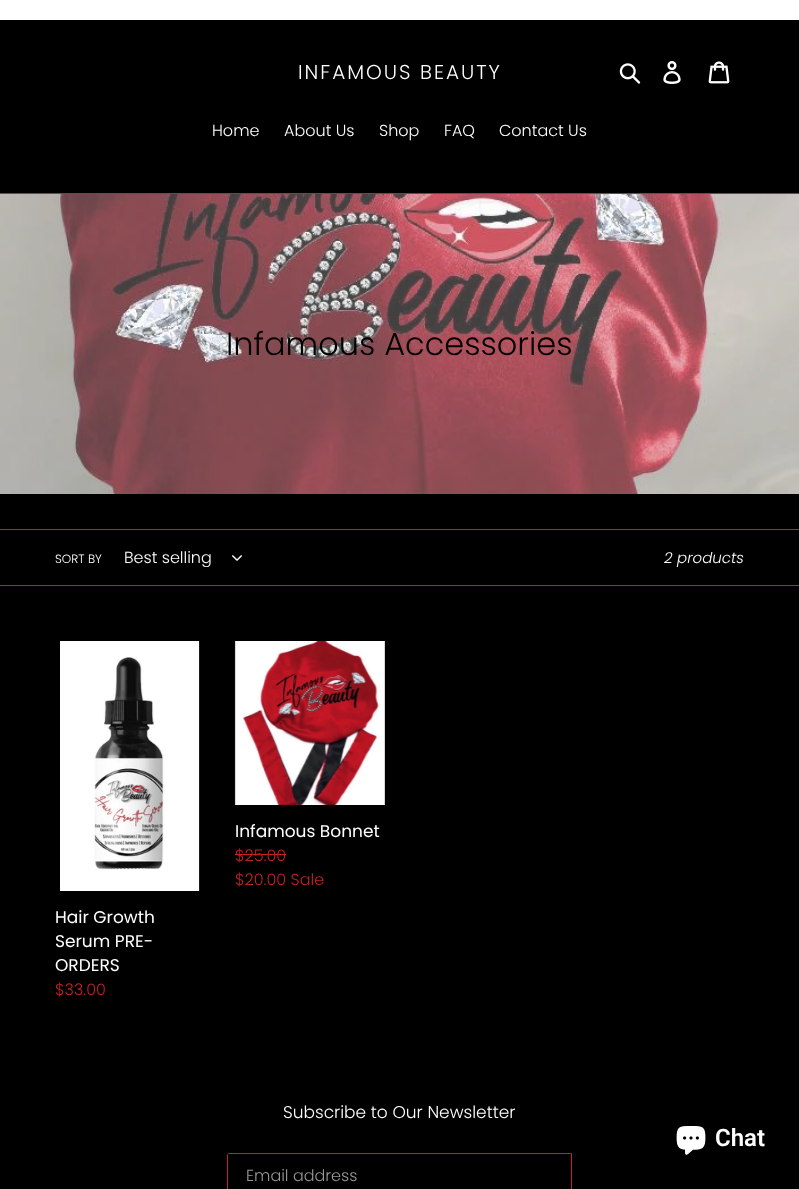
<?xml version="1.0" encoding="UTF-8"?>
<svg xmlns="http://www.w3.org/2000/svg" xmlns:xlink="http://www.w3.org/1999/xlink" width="799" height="1189">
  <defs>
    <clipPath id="clip1"><rect x="124" y="548" width="98" height="19" /></clipPath>
  </defs>
  <rect width="100%" height="100%" fill="#000000" />
  <rect width="799" height="20" fill="#ffffff" />
  <image x="619" y="63" width="22" height="21" xlink:href="image1.png" />
  <image x="663" y="61" width="18" height="23" xlink:href="image2.png" />
  <image x="708" y="61" width="22" height="23" xlink:href="image3.png" />
  <rect y="193" width="799" height="1" fill="#c52222" />
  <image x="0" y="194" width="799" height="300" xlink:href="image4.png" />
  <rect y="529" width="799" height="1" fill="#c52222" />
  <rect y="585" width="799" height="1" fill="#c52222" />
  <image x="232" y="555" width="10" height="6" xlink:href="image5.png" />
  <image x="234" y="641" width="151" height="164" xlink:href="image6.png" />
  <rect x="235" y="854" width="51" height="1" fill="#c52222" />
  <image x="60" y="641" width="140" height="250" xlink:href="image7.png" />
  <path d="M 229 1153.5 h 342.5 v 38 h -342.5 c -1 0 -1.5 -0.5 -1.5 -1.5 v -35 c 0 -1 0.5 -1.5 1.5 -1.5 z" fill="none" stroke="#c52222" />
  <image x="676" y="1126" width="30" height="29" xlink:href="image8.png" />
  <text x="298" y="79" style="font-family: Poppins; font-size: 20px; font-weight: 300; letter-spacing: 2px; fill: #ffffff">INFAMOUS BEAUTY</text>
  <text x="212" y="136" style="font-family: Poppins; font-size: 16px; font-weight: 300; fill: #ffffff">Home</text>
  <text x="284" y="136" style="font-family: Poppins; font-size: 16px; font-weight: 300; fill: #ffffff">About Us</text>
  <text x="379" y="136" style="font-family: Poppins; font-size: 16px; font-weight: 300; fill: #ffffff">Shop</text>
  <text x="444" y="136" style="font-family: Poppins; font-size: 16px; font-weight: 300; fill: #ffffff">FAQ</text>
  <text x="499" y="136" style="font-family: Poppins; font-size: 16px; font-weight: 300; fill: #ffffff">Contact Us</text>
  <text x="226" y="355" style="font-family: Poppins; font-size: 32px; font-weight: 300; fill: #000000">Infamous Accessories</text>
  <text x="55" y="563" style="font-family: Poppins; font-size: 12px; font-weight: 300; fill: #ffffff">SORT BY</text>
  <g clip-path="url(#clip1)">
    <text x="124" y="563" style="font-family: Poppins; font-size: 16px; font-weight: 300; fill: #ffffff">Best selling</text>
  </g>
  <text x="664" y="563" style="font-family: Poppins; font-size: 15px; font-weight: 300; font-style: italic; fill: #ffffff">2 products</text>
  <text x="235" y="837" style="font-family: Poppins; font-size: 17px; fill: #ffffff">Infamous Bonnet</text>
  <text x="235" y="861" style="font-family: Poppins; font-size: 16px; font-weight: 300; fill: #c52222">$25.00</text>
  <text x="235" y="885" style="font-family: Poppins; font-size: 16px; font-weight: 300; fill: #c52222">$20.00 Sale</text>
  <text x="55" y="923" style="font-family: Poppins; font-size: 17px; fill: #ffffff">Hair Growth</text>
  <text x="55" y="947" style="font-family: Poppins; font-size: 17px; fill: #ffffff">Serum PRE-</text>
  <text x="55" y="971" style="font-family: Poppins; font-size: 17px; fill: #ffffff">ORDERS</text>
  <text x="55" y="995" style="font-family: Poppins; font-size: 16px; font-weight: 300; fill: #c52222">$33.00</text>
  <text x="283" y="1118" style="font-family: Poppins; font-size: 17px; font-weight: 300; fill: #ffffff">Subscribe to Our Newsletter</text>
  <text x="246" y="1181" style="font-family: Poppins; font-size: 16px; font-weight: 300; fill: #999999">Email address</text>
  <text x="715" y="1146" style="font-family: Roboto; font-size: 24px; font-weight: 600; fill: #ffffff">Chat</text>
</svg>
